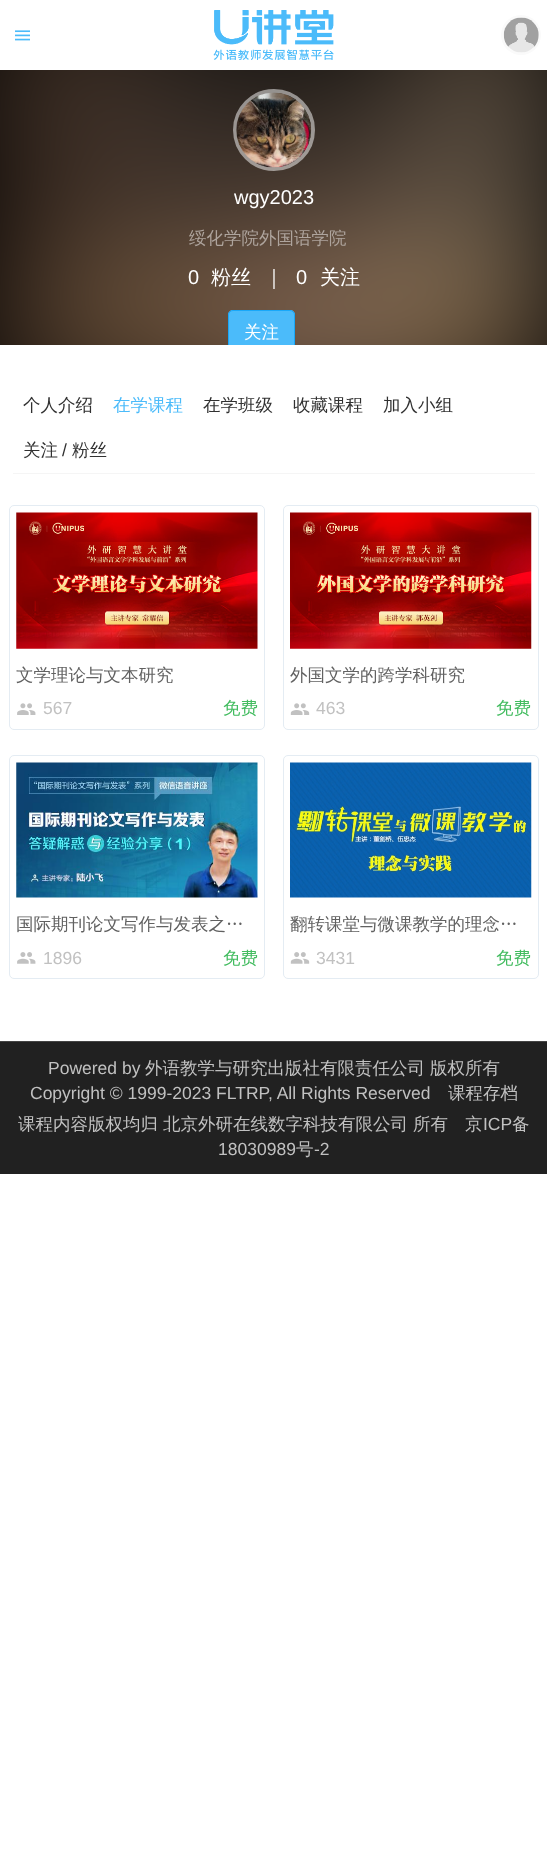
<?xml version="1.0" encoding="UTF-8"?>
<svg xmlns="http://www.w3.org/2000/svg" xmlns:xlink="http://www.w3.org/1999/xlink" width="547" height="1855">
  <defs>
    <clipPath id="clip1"><rect y="70" width="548" height="275" /></clipPath>
  </defs>
  <rect width="100%" height="100%" fill="#ffffff" />
  <image x="15" y="30" width="15" height="11" xlink:href="image1.png" />
  <image x="213" y="10" width="121" height="50" xlink:href="image2.png" />
  <circle cx="521" cy="35" r="20" fill="#fafafa" />
  <image x="503" y="17" width="36" height="36" xlink:href="image3.png" />
  <rect y="70" width="547" height="275" fill="#000000" />
  <image x="0" y="70" width="547" height="275" xlink:href="image4.png" />
  <circle cx="274" cy="130" r="39" fill="none" stroke="#ffffff" stroke-opacity="0.5" stroke-width="4" />
  <image x="236" y="92" width="76" height="76" xlink:href="image5.png" />
  <path d="M 233 310 h 57 c 3 0 5 2 5 5 v 30 h -67 v -30 c 0 -3 2 -5 5 -5 z" fill="#4bbbfa" />
  <g clip-path="url(#clip1)">
    <rect x="228.5" y="310.5" width="66" height="42" rx="4.5" fill="none" stroke="#19a8f9" />
  </g>
  <rect x="13" y="473" width="522" height="1" fill="#f5f5f5" />
  <rect x="9.5" y="505.5" width="255" height="224" rx="4.5" fill="none" stroke="#e4ecf3" />
  <image x="16" y="512" width="242" height="137" xlink:href="image6.png" />
  <image x="17" y="703" width="19" height="12" xlink:href="image7.png" />
  <rect x="283.5" y="505.5" width="255" height="224" rx="4.5" fill="none" stroke="#e4ecf3" />
  <image x="290" y="512" width="242" height="137" xlink:href="image8.png" />
  <image x="290" y="703" width="20" height="12" xlink:href="image9.png" />
  <rect x="9.5" y="755.5" width="255" height="223" rx="4.5" fill="none" stroke="#e4ecf3" />
  <image x="16" y="762" width="242" height="136" xlink:href="image10.png" />
  <image x="17" y="952" width="19" height="12" xlink:href="image11.png" />
  <rect x="283.5" y="755.5" width="255" height="223" rx="4.5" fill="none" stroke="#e4ecf3" />
  <image x="290" y="762" width="242" height="136" xlink:href="image12.png" />
  <image x="290" y="952" width="20" height="12" xlink:href="image13.png" />
  <rect y="1042" width="547" height="132" fill="#212121" />
  <rect y="1041" width="547" height="1" fill="#444444" />
  <text x="234" y="204" style="font-family: Liberation Sans; font-size: 20px; fill: #ffffff">wgy2023</text>
  <text x="189" y="244" style="font-family: WenQuanYi Zen Hei; font-size: 17.5px; font-weight: 500; fill: #aea49d">绥化学院外国语学院</text>
  <text x="188" y="284" style="font-family: Liberation Sans; font-size: 20px; fill: #ffffff">0</text>
  <text x="211" y="284" style="font-family: WenQuanYi Zen Hei; font-size: 20px; font-weight: 500; fill: #ffffff">粉丝</text>
  <text x="264" y="284" style="font-family: WenQuanYi Zen Hei; font-size: 20px; font-weight: 500; fill: #ffffff">｜</text>
  <text x="296" y="284" style="font-family: Liberation Sans; font-size: 20px; fill: #ffffff">0</text>
  <text x="320" y="284" style="font-family: WenQuanYi Zen Hei; font-size: 20px; font-weight: 500; fill: #ffffff">关注</text>
  <text x="244" y="338" style="font-family: WenQuanYi Zen Hei; font-size: 17.5px; font-weight: 500; fill: #ffffff">关注</text>
  <text x="23" y="411" style="font-family: WenQuanYi Zen Hei; font-size: 17.5px; font-weight: 500; fill: #313131">个人介绍</text>
  <text x="113" y="411" style="font-family: WenQuanYi Zen Hei; font-size: 17.5px; font-weight: 500; fill: #4bbbfa">在学课程</text>
  <text x="203" y="411" style="font-family: WenQuanYi Zen Hei; font-size: 17.5px; font-weight: 500; fill: #313131">在学班级</text>
  <text x="293" y="411" style="font-family: WenQuanYi Zen Hei; font-size: 17.5px; font-weight: 500; fill: #313131">收藏课程</text>
  <text x="383" y="411" style="font-family: WenQuanYi Zen Hei; font-size: 17.5px; font-weight: 500; fill: #313131">加入小组</text>
  <text x="23" y="456" style="font-family: WenQuanYi Zen Hei; font-size: 17.5px; font-weight: 500; fill: #313131">关注</text>
  <text x="62" y="456" style="font-family: Liberation Sans; font-size: 17.5px; fill: #313131">/</text>
  <text x="72" y="456" style="font-family: WenQuanYi Zen Hei; font-size: 17.5px; font-weight: 500; fill: #313131">粉丝</text>
  <text x="16" y="681" style="font-family: WenQuanYi Zen Hei; font-size: 17.5px; font-weight: 500; fill: #616161">文学理论与文本研究</text>
  <text x="43" y="714" style="font-family: Liberation Sans; font-size: 17.5px; fill: #c1c1c1">567</text>
  <text x="223" y="714" style="font-family: WenQuanYi Zen Hei; font-size: 17.5px; font-weight: 500; fill: #43bc60">免费</text>
  <text x="290" y="681" style="font-family: WenQuanYi Zen Hei; font-size: 17.5px; font-weight: 500; fill: #616161">外国文学的跨学科研究</text>
  <text x="316" y="714" style="font-family: Liberation Sans; font-size: 17.5px; fill: #c1c1c1">463</text>
  <text x="496" y="714" style="font-family: WenQuanYi Zen Hei; font-size: 17.5px; font-weight: 500; fill: #43bc60">免费</text>
  <text x="16" y="930" style="font-family: WenQuanYi Zen Hei; font-size: 17.5px; font-weight: 500; fill: #616161">国际期刊论文写作与发表之…</text>
  <text x="43" y="964" style="font-family: Liberation Sans; font-size: 17.5px; fill: #c1c1c1">1896</text>
  <text x="223" y="964" style="font-family: WenQuanYi Zen Hei; font-size: 17.5px; font-weight: 500; fill: #43bc60">免费</text>
  <text x="290" y="930" style="font-family: WenQuanYi Zen Hei; font-size: 17.5px; font-weight: 500; fill: #616161">翻转课堂与微课教学的理念…</text>
  <text x="316" y="964" style="font-family: Liberation Sans; font-size: 17.5px; fill: #c1c1c1">3431</text>
  <text x="496" y="964" style="font-family: WenQuanYi Zen Hei; font-size: 17.5px; font-weight: 500; fill: #43bc60">免费</text>
  <text x="48" y="1074" style="font-family: Liberation Sans; font-size: 17.5px; fill: #c1c1c1">Powered by</text>
  <text x="145" y="1074" style="font-family: WenQuanYi Zen Hei; font-size: 17.5px; font-weight: 500; fill: #c1c1c1">外语教学与研究出版社有限责任公司</text>
  <text x="430" y="1074" style="font-family: WenQuanYi Zen Hei; font-size: 17.5px; font-weight: 500; fill: #c1c1c1">版权所有</text>
  <text x="30" y="1099" style="font-family: Liberation Sans; font-size: 17.5px; fill: #c1c1c1">Copyright © 1999-2023 FLTRP, All Rights Reserved</text>
  <text x="448" y="1099" style="font-family: WenQuanYi Zen Hei; font-size: 17.5px; font-weight: 500; fill: #c1c1c1">课程存档</text>
  <text x="18" y="1130" style="font-family: WenQuanYi Zen Hei; font-size: 17.5px; font-weight: 500; fill: #c1c1c1">课程内容版权均归</text>
  <text x="163" y="1130" style="font-family: WenQuanYi Zen Hei; font-size: 17.5px; font-weight: 500; fill: #c1c1c1">北京外研在线数字科技有限公司</text>
  <text x="413" y="1130" style="font-family: WenQuanYi Zen Hei; font-size: 17.5px; font-weight: 500; fill: #c1c1c1">所有</text>
  <text x="465" y="1130" style="font-family: WenQuanYi Zen Hei; font-size: 17.5px; font-weight: 500; fill: #c1c1c1">京</text>
  <text x="483" y="1130" style="font-family: Liberation Sans; font-size: 17.5px; fill: #c1c1c1">ICP</text>
  <text x="512" y="1130" style="font-family: WenQuanYi Zen Hei; font-size: 17.5px; font-weight: 500; fill: #c1c1c1">备</text>
  <text x="218" y="1155" style="font-family: Liberation Sans; font-size: 17.5px; fill: #c1c1c1">18030989</text>
  <text x="296" y="1155" style="font-family: WenQuanYi Zen Hei; font-size: 17.5px; font-weight: 500; fill: #c1c1c1">号</text>
  <text x="314" y="1155" style="font-family: Liberation Sans; font-size: 17.5px; fill: #c1c1c1">-2</text>
</svg>
